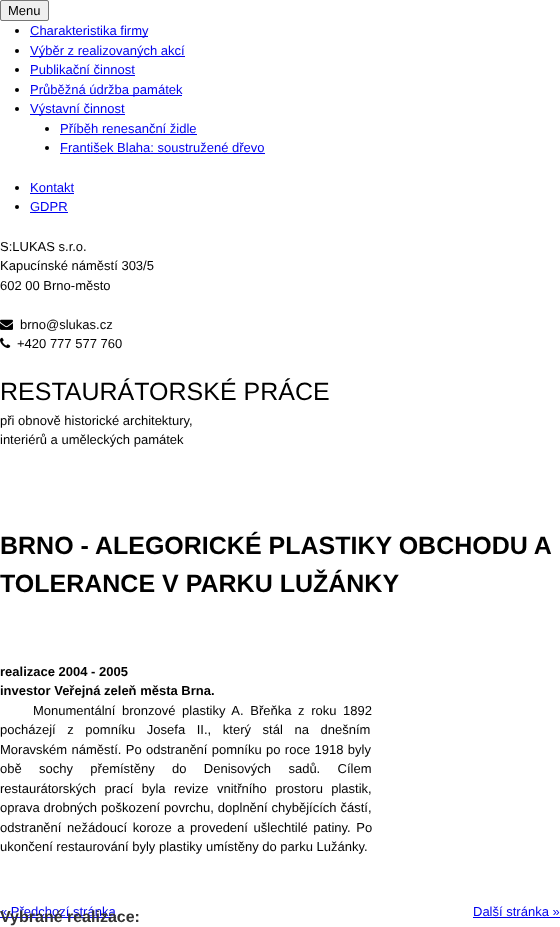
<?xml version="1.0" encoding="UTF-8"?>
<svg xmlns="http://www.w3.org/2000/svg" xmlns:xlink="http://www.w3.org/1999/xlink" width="560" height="927">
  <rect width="100%" height="100%" fill="#ffffff" />
  <rect x="0.5" y="0.5" width="48" height="20" rx="1.5" fill="#efefef" stroke="#767676" />
  <circle cx="17" cy="31" r="2" fill="#000000" />
  <rect x="30" y="36" width="118" height="1" fill="#0000ee" />
  <circle cx="17" cy="51" r="2" fill="#000000" />
  <rect x="30" y="56" width="155" height="1" fill="#0000ee" />
  <circle cx="17" cy="70" r="2" fill="#000000" />
  <rect x="30" y="75" width="105" height="1" fill="#0000ee" />
  <circle cx="17" cy="90" r="2" fill="#000000" />
  <rect x="30" y="95" width="152" height="1" fill="#0000ee" />
  <circle cx="17" cy="109" r="2" fill="#000000" />
  <rect x="30" y="114" width="95" height="1" fill="#0000ee" />
  <circle cx="47" cy="129" r="2" fill="#000000" />
  <rect x="60" y="134" width="137" height="1" fill="#0000ee" />
  <circle cx="47" cy="148" r="2" fill="#000000" />
  <rect x="60" y="153" width="205" height="1" fill="#0000ee" />
  <circle cx="17" cy="188" r="2" fill="#000000" />
  <rect x="30" y="193" width="44" height="1" fill="#0000ee" />
  <circle cx="17" cy="207" r="2" fill="#000000" />
  <rect x="30" y="212" width="38" height="1" fill="#0000ee" />
  <image x="0" y="319" width="13" height="11" xlink:href="image1.png" />
  <image x="0" y="337" width="11" height="11" xlink:href="image2.png" />
  <rect y="917" width="116" height="1" fill="#0000ee" />
  <rect x="473" y="917" width="87" height="1" fill="#0000ee" />
  <text x="8" y="15" style="font-family: Liberation Sans; font-size: 13px; fill: #000000">Menu</text>
  <text x="30" y="35" style="font-family: Liberation Sans; font-size: 13px; fill: #0000ee">Charakteristika firmy</text>
  <text x="30" y="55" style="font-family: Liberation Sans; font-size: 13px; fill: #0000ee">Výběr z realizovaných akcí</text>
  <text x="30" y="74" style="font-family: Liberation Sans; font-size: 13px; fill: #0000ee">Publikační činnost</text>
  <text x="30" y="94" style="font-family: Liberation Sans; font-size: 13px; fill: #0000ee">Průběžná údržba památek</text>
  <text x="30" y="113" style="font-family: Liberation Sans; font-size: 13px; fill: #0000ee">Výstavní činnost</text>
  <text x="60" y="133" style="font-family: Liberation Sans; font-size: 13px; fill: #0000ee">Příběh renesanční židle</text>
  <text x="60" y="152" style="font-family: Liberation Sans; font-size: 13px; fill: #0000ee">František Blaha: soustružené dřevo</text>
  <text x="30" y="192" style="font-family: Liberation Sans; font-size: 13px; fill: #0000ee">Kontakt</text>
  <text x="30" y="211" style="font-family: Liberation Sans; font-size: 13px; fill: #0000ee">GDPR</text>
  <text x="0" y="251" style="font-family: Liberation Sans; font-size: 13px; fill: #000000">S:LUKAS s.r.o.</text>
  <text x="0" y="270" style="font-family: Liberation Sans; font-size: 13px; fill: #000000">Kapucínské náměstí 303/5</text>
  <text x="0" y="290" style="font-family: Liberation Sans; font-size: 13px; fill: #000000">602 00 Brno-město</text>
  <text x="20" y="329" style="font-family: Liberation Sans; font-size: 13px; fill: #000000">brno@slukas.cz</text>
  <text x="17" y="348" style="font-family: Liberation Sans; font-size: 13px; fill: #000000">+420 777 577 760</text>
  <text x="0" y="400" style="font-family: Liberation Sans; font-size: 25px; fill: #000000">RESTAURÁTORSKÉ PRÁCE</text>
  <text x="0" y="425" style="font-family: Liberation Sans; font-size: 13px; fill: #000000">při obnově historické architektury,</text>
  <text x="0" y="444" style="font-family: Liberation Sans; font-size: 13px; fill: #000000">interiérů a uměleckých památek</text>
  <text x="0" y="554" style="font-family: Liberation Sans; font-size: 25px; font-weight: bold; fill: #000000">BRNO - ALEGORICKÉ PLASTIKY OBCHODU A</text>
  <text x="0" y="592" style="font-family: Liberation Sans; font-size: 25px; font-weight: bold; fill: #000000">TOLERANCE V PARKU LUŽÁNKY</text>
  <text x="0" y="676" style="font-family: Liberation Sans; font-size: 13px; font-weight: bold; fill: #000000">realizace 2004 - 2005</text>
  <text x="0" y="695" style="font-family: Liberation Sans; font-size: 13px; font-weight: bold; fill: #000000">investor Veřejná zeleň města Brna.</text>
  <text x="33" y="715" word-spacing="3" style="font-family: Liberation Sans; font-size: 13px; fill: #000000">Monumentální bronzové plastiky A. Břeňka z roku 1892</text>
  <text x="0" y="734" word-spacing="8" style="font-family: Liberation Sans; font-size: 13px; fill: #000000">pocházejí z pomníku Josefa II., který stál na dnešním</text>
  <text x="0" y="754" word-spacing="0.75" style="font-family: Liberation Sans; font-size: 13px; fill: #000000">Moravském náměstí. Po odstranění pomníku po roce 1918 byly</text>
  <text x="0" y="773" word-spacing="13.75" style="font-family: Liberation Sans; font-size: 13px; fill: #000000">obě sochy přemístěny do Denisových sadů. Cílem</text>
  <text x="0" y="793" word-spacing="4.75" style="font-family: Liberation Sans; font-size: 13px; fill: #000000">restaurátorských prací byla revize vnitřního prostoru plastik,</text>
  <text x="0" y="812" word-spacing="0.25" style="font-family: Liberation Sans; font-size: 13px; fill: #000000">oprava drobných poškození povrchu, doplnění chybějících částí,</text>
  <text x="0" y="832" word-spacing="2" style="font-family: Liberation Sans; font-size: 13px; fill: #000000">odstranění nežádoucí koroze a provedení ušlechtilé patiny. Po</text>
  <text x="0" y="851" style="font-family: Liberation Sans; font-size: 13px; fill: #000000">ukončení restaurování byly plastiky umístěny do parku Lužánky.</text>
  <text x="0" y="916" style="font-family: Liberation Sans; font-size: 13px; fill: #0000ee">« Předchozí stránka</text>
  <text x="473" y="916" style="font-family: Liberation Sans; font-size: 13px; fill: #0000ee">Další stránka »</text>
  <text x="0" y="922" style="font-family: Liberation Sans; font-size: 16px; font-weight: bold; fill: #333333">Vybrané realizace:</text>
</svg>
